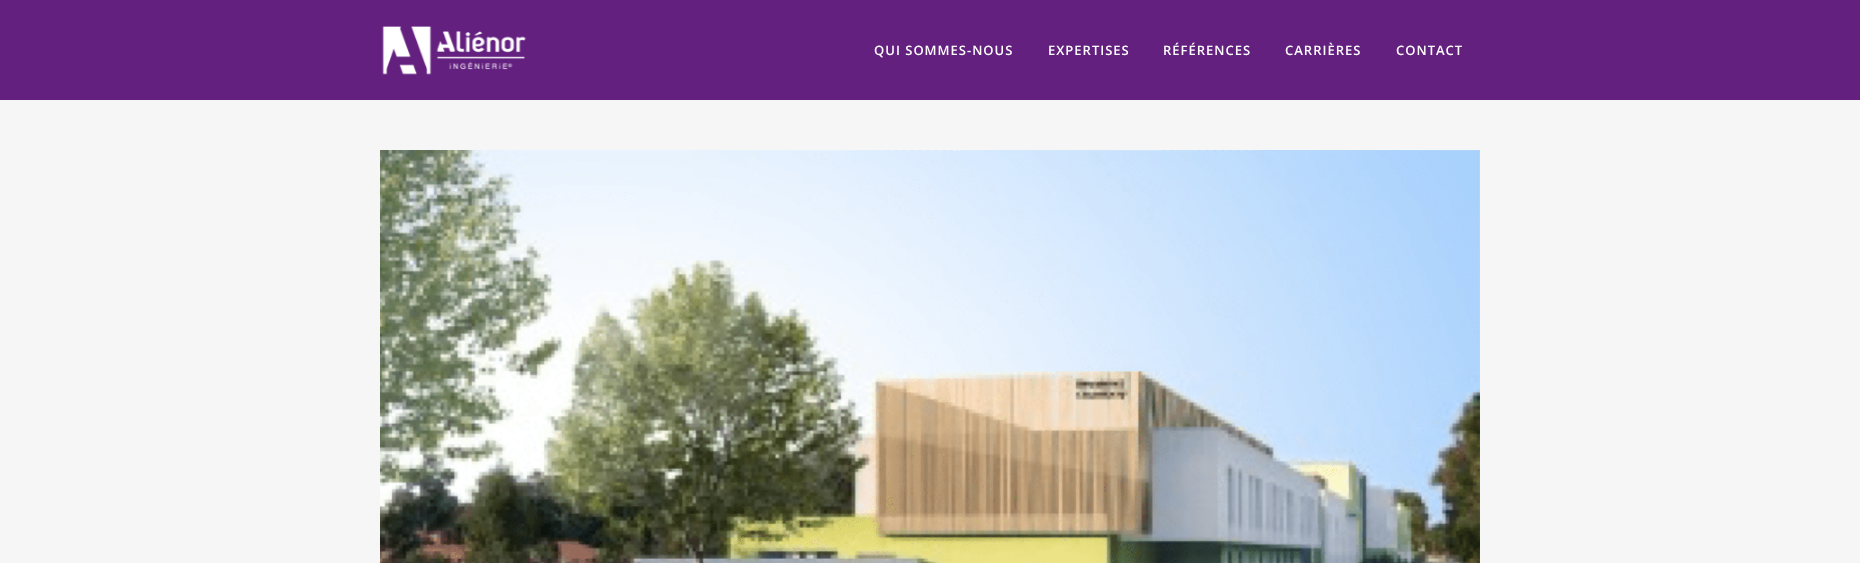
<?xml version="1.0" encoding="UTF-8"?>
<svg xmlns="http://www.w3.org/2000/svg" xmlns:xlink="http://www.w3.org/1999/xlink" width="1860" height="563">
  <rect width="100%" height="100%" fill="#f6f6f6" />
  <rect width="1860" height="100" fill="#63207f" />
  <image x="382" y="26" width="144" height="49" xlink:href="image1.png" />
  <image x="380" y="150" width="1100" height="413" xlink:href="image2.png" />
  <text x="874" y="55" style="font-family: Open Sans; font-size: 13px; font-weight: 600; letter-spacing: 1px; fill: #ffffff">QUI SOMMES-NOUS</text>
  <text x="1048" y="55" style="font-family: Open Sans; font-size: 13px; font-weight: 600; letter-spacing: 1px; fill: #ffffff">EXPERTISES</text>
  <text x="1163" y="55" style="font-family: Open Sans; font-size: 13px; font-weight: 600; letter-spacing: 1px; fill: #ffffff">RÉFÉRENCES</text>
  <text x="1285" y="55" style="font-family: Open Sans; font-size: 13px; font-weight: 600; letter-spacing: 1px; fill: #ffffff">CARRIÈRES</text>
  <text x="1396" y="55" style="font-family: Open Sans; font-size: 13px; font-weight: 600; letter-spacing: 1px; fill: #ffffff">CONTACT</text>
</svg>
